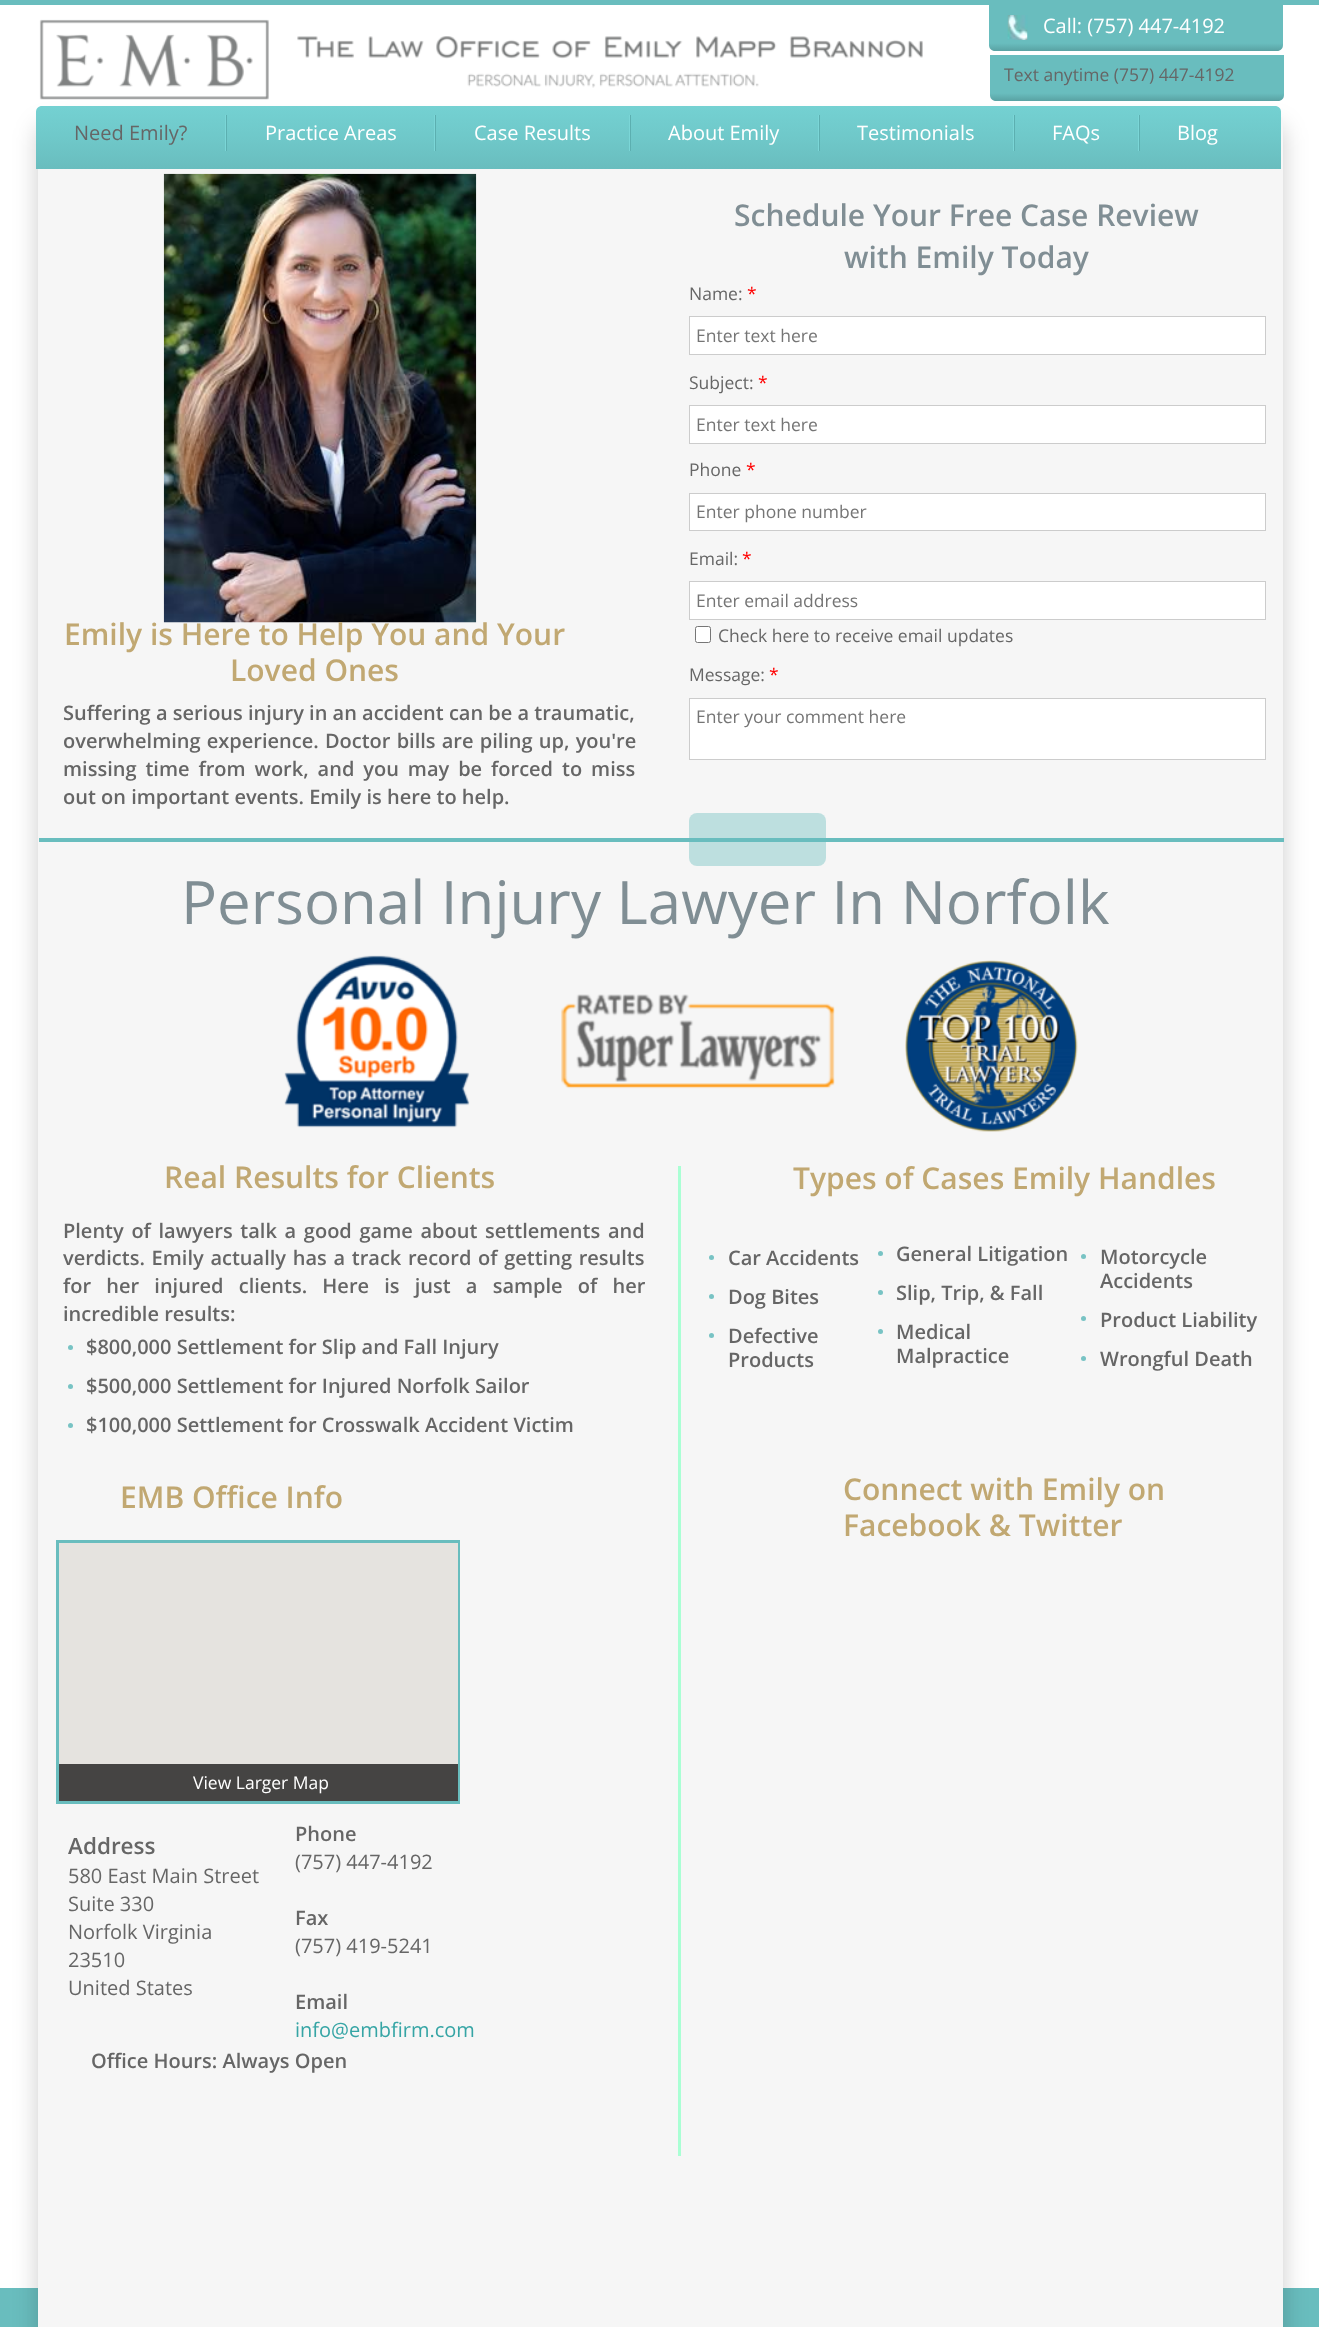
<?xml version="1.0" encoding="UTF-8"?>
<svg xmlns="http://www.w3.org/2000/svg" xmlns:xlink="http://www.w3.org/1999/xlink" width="1319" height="2327">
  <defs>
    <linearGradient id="g1" gradientUnits="userSpaceOnUse" x1="1136" y1="5" x2="1136" y2="51"><stop offset="0" stop-color="#69bdbe" /><stop offset="0.83" stop-color="#69bdbe" /><stop offset="1" stop-color="#59a2a3" /></linearGradient>
    <linearGradient id="g2" gradientUnits="userSpaceOnUse" x1="1137" y1="55" x2="1137" y2="101"><stop offset="0" stop-color="#69bdbe" /><stop offset="0.83" stop-color="#69bdbe" /><stop offset="1" stop-color="#59a2a3" /></linearGradient>
    <linearGradient id="g3" gradientUnits="userSpaceOnUse" x1="659" y1="106" x2="659" y2="169"><stop offset="0" stop-color="#74d1d2" /><stop offset="0.51" stop-color="#6fc8c9" /><stop offset="1" stop-color="#69bdbe" /></linearGradient>
  </defs>
  <rect width="100%" height="100%" fill="#69bdbe" />
  <rect y="5" width="1319" height="2283" fill="#ffffff" />
  <rect x="38" y="126" width="1245" height="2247" rx="8" fill="#000000" fill-opacity="0.2" filter="blur(12.5px)" />
  <path d="M 46 114 h 1229 c 4.5 0 8 3.5 8 8 v 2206 h -1245 v -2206 c 0 -4.5 3.5 -8 8 -8 z" fill="#f6f6f6" />
  <path d="M 989 5 h 294 v 40 c 0 3.5 -2.5 6 -6 6 h -282 c -3.5 0 -6 -2.5 -6 -6 z" fill="url(#g1)" />
  <image x="39" y="19" width="230" height="81" xlink:href="image1.png" />
  <image x="297" y="36" width="626" height="52" xlink:href="image2.png" />
  <image x="1007" y="15" width="21" height="25" xlink:href="image3.png" />
  <path d="M 990 55 h 294 v 40 c 0 3.5 -2.5 6 -6 6 h -282 c -3.5 0 -6 -2.5 -6 -6 z" fill="url(#g2)" />
  <path d="M 42 106 h 1233 c 3.5 0 6 2.5 6 6 v 57 h -1245 v -57 c 0 -3.5 2.5 -6 6 -6 z" fill="url(#g3)" />
  <rect x="225" y="115" width="1" height="36" fill="#7bd6d7" />
  <rect x="434" y="115" width="1" height="36" fill="#7bd6d7" />
  <rect x="226" y="115" width="1" height="36" fill="#5cafb0" />
  <rect x="629" y="115" width="1" height="36" fill="#7bd6d7" />
  <rect x="435" y="115" width="1" height="36" fill="#5cafb0" />
  <rect x="818" y="115" width="1" height="36" fill="#7bd6d7" />
  <rect x="630" y="115" width="1" height="36" fill="#5cafb0" />
  <rect x="1013" y="115" width="1" height="36" fill="#7bd6d7" />
  <rect x="819" y="115" width="1" height="36" fill="#5cafb0" />
  <rect x="1138" y="115" width="1" height="36" fill="#7bd6d7" />
  <rect x="1014" y="115" width="1" height="36" fill="#5cafb0" />
  <rect x="1139" y="115" width="1" height="36" fill="#5cafb0" />
  <image x="163" y="173" width="314" height="450" xlink:href="image4.png" />
  <rect x="689.5" y="316.5" width="576" height="38" fill="#ffffff" stroke="#cccccc" />
  <rect x="689.5" y="405.5" width="576" height="38" fill="#ffffff" stroke="#cccccc" />
  <rect x="689.5" y="493.5" width="576" height="37" fill="#ffffff" stroke="#cccccc" />
  <rect x="689.5" y="581.5" width="576" height="38" fill="#ffffff" stroke="#cccccc" />
  <rect x="695.5" y="626.5" width="15" height="16" rx="2" fill="#ffffff" stroke="#767676" />
  <rect x="689.5" y="698.5" width="576" height="61" fill="#ffffff" stroke="#cccccc" />
  <rect x="39" y="838" width="1245" height="4" fill="#69bdbe" />
  <rect x="689" y="813" width="137" height="53" rx="8" fill="#69bdbe" fill-opacity="0.4" />
  <image x="284" y="955" width="186" height="173" xlink:href="image5.png" />
  <image x="561" y="994" width="274" height="95" xlink:href="image6.png" />
  <image x="905" y="960" width="173" height="172" xlink:href="image7.png" />
  <rect x="678" y="1166" width="3" height="990" fill="#aaffd4" />
  <circle cx="70.5" cy="1347.5" r="2.5" fill="#78c3c4" />
  <circle cx="70.5" cy="1386.5" r="2.5" fill="#78c3c4" />
  <circle cx="70.5" cy="1425.5" r="2.5" fill="#78c3c4" />
  <circle cx="711.5" cy="1257.5" r="2.5" fill="#78c3c4" />
  <circle cx="711.5" cy="1296.5" r="2.5" fill="#78c3c4" />
  <circle cx="711.5" cy="1335.5" r="2.5" fill="#78c3c4" />
  <circle cx="880.5" cy="1253.5" r="2.5" fill="#78c3c4" />
  <circle cx="880.5" cy="1292.5" r="2.5" fill="#78c3c4" />
  <circle cx="880.5" cy="1331.5" r="2.5" fill="#78c3c4" />
  <circle cx="1083.5" cy="1256.5" r="2.5" fill="#78c3c4" />
  <circle cx="1083.5" cy="1318.5" r="2.5" fill="#78c3c4" />
  <circle cx="1083.5" cy="1358.5" r="2.5" fill="#78c3c4" />
  <rect x="57.5" y="1541.5" width="401" height="261" fill="none" stroke="#69bdbe" stroke-width="3" />
  <rect x="59" y="1543" width="399" height="221" fill="#e5e3df" />
  <rect x="59" y="1764" width="399" height="37" fill="#454443" />
  <text x="1043" y="33" style="font-family: Open Sans; font-size: 20px; fill: #ffffff">Call: (757) 447-4192</text>
  <text x="1004" y="81" style="font-family: Open Sans; font-size: 17.5px; fill: #666666">Text anytime (757) 447-4192</text>
  <text x="74" y="140" style="font-family: Open Sans; font-size: 20px; fill: #666666">Need Emily?</text>
  <text x="265" y="140" style="font-family: Open Sans; font-size: 20px; fill: #ffffff">Practice Areas</text>
  <text x="474" y="140" style="font-family: Open Sans; font-size: 20px; fill: #ffffff">Case Results</text>
  <text x="668" y="140" style="font-family: Open Sans; font-size: 20px; fill: #ffffff">About Emily</text>
  <text x="857" y="140" style="font-family: Open Sans; font-size: 20px; fill: #ffffff">Testimonials</text>
  <text x="1052" y="140" style="font-family: Open Sans; font-size: 20px; fill: #ffffff">FAQs</text>
  <text x="1177" y="140" style="font-family: Open Sans; font-size: 20px; fill: #ffffff">Blog</text>
  <text x="734" y="226" style="font-family: Open Sans; font-size: 30px; font-weight: 600; fill: #808e94">Schedule Your Free Case Review</text>
  <text x="844" y="268" style="font-family: Open Sans; font-size: 30px; font-weight: 600; fill: #808e94">with Emily Today</text>
  <text x="689" y="300" style="font-family: Open Sans; font-size: 17.5px; fill: #666666">Name:</text>
  <text x="747" y="300" style="font-family: Open Sans; font-size: 17.5px; fill: #ff0000">*</text>
  <text x="696" y="342" style="font-family: Open Sans; font-size: 17.5px; fill: #757575">Enter text here</text>
  <text x="689" y="389" style="font-family: Open Sans; font-size: 17.5px; fill: #666666">Subject:</text>
  <text x="758" y="389" style="font-family: Open Sans; font-size: 17.5px; fill: #ff0000">*</text>
  <text x="696" y="431" style="font-family: Open Sans; font-size: 17.5px; fill: #757575">Enter text here</text>
  <text x="689" y="476" style="font-family: Open Sans; font-size: 17.5px; fill: #666666">Phone</text>
  <text x="746" y="476" style="font-family: Open Sans; font-size: 17.5px; fill: #ff0000">*</text>
  <text x="696" y="518" style="font-family: Open Sans; font-size: 17.5px; fill: #757575">Enter phone number</text>
  <text x="64" y="645" style="font-family: Open Sans; font-size: 30px; font-weight: 600; fill: #c1a872">Emily is Here to Help You and Your</text>
  <text x="230" y="681" style="font-family: Open Sans; font-size: 30px; font-weight: 600; fill: #c1a872">Loved Ones</text>
  <text x="689" y="565" style="font-family: Open Sans; font-size: 17.5px; fill: #666666">Email:</text>
  <text x="742" y="565" style="font-family: Open Sans; font-size: 17.5px; fill: #ff0000">*</text>
  <text x="696" y="607" style="font-family: Open Sans; font-size: 17.5px; fill: #757575">Enter email address</text>
  <text x="718" y="642" style="font-family: Open Sans; font-size: 17.5px; fill: #666666">Check here to receive email updates</text>
  <text x="689" y="681" style="font-family: Open Sans; font-size: 17.5px; fill: #666666">Message:</text>
  <text x="769" y="681" style="font-family: Open Sans; font-size: 17.5px; fill: #ff0000">*</text>
  <text x="696" y="723" style="font-family: Open Sans; font-size: 17.5px; fill: #757575">Enter your comment here</text>
  <text x="63" y="720" style="font-family: Open Sans; font-size: 20px; font-weight: 600; fill: #666666">Suffering a serious injury in an accident can be a traumatic,</text>
  <text x="63" y="748" word-spacing="1" style="font-family: Open Sans; font-size: 20px; font-weight: 600; fill: #666666">overwhelming experience. Doctor bills are piling up, you're</text>
  <text x="63" y="776" word-spacing="3.75" style="font-family: Open Sans; font-size: 20px; font-weight: 600; fill: #666666">missing time from work, and you may be forced to miss</text>
  <text x="63" y="804" style="font-family: Open Sans; font-size: 20px; font-weight: 600; fill: #666666">out on important events. Emily is here to help.</text>
  <text x="181" y="924" style="font-family: Open Sans; font-size: 60px; fill: #808e94">Personal Injury Lawyer In Norfolk</text>
  <text x="164" y="1188" style="font-family: Open Sans; font-size: 30px; font-weight: 600; fill: #c1a872">Real Results for Clients</text>
  <text x="793" y="1189" style="font-family: Open Sans; font-size: 30px; font-weight: 600; fill: #c1a872">Types of Cases Emily Handles</text>
  <text x="63" y="1238" word-spacing="2.5" style="font-family: Open Sans; font-size: 20px; font-weight: 600; fill: #666666">Plenty of lawyers talk a good game about settlements and</text>
  <text x="63" y="1265" word-spacing="1.5" style="font-family: Open Sans; font-size: 20px; font-weight: 600; fill: #666666">verdicts. Emily actually has a track record of getting results</text>
  <text x="63" y="1293" word-spacing="10" style="font-family: Open Sans; font-size: 20px; font-weight: 600; fill: #666666">for her injured clients. Here is just a sample of her</text>
  <text x="63" y="1321" style="font-family: Open Sans; font-size: 20px; font-weight: 600; fill: #666666">incredible results:</text>
  <text x="86" y="1354" style="font-family: Open Sans; font-size: 20px; font-weight: 600; fill: #666666">$800,000 Settlement for Slip and Fall Injury</text>
  <text x="86" y="1393" style="font-family: Open Sans; font-size: 20px; font-weight: 600; fill: #666666">$500,000 Settlement for Injured Norfolk Sailor</text>
  <text x="86" y="1432" style="font-family: Open Sans; font-size: 20px; font-weight: 600; fill: #666666">$100,000 Settlement for Crosswalk Accident Victim</text>
  <text x="728" y="1265" style="font-family: Open Sans; font-size: 20px; font-weight: 600; fill: #666666">Car Accidents</text>
  <text x="728" y="1304" style="font-family: Open Sans; font-size: 20px; font-weight: 600; fill: #666666">Dog Bites</text>
  <text x="728" y="1343" style="font-family: Open Sans; font-size: 20px; font-weight: 600; fill: #666666">Defective</text>
  <text x="728" y="1367" style="font-family: Open Sans; font-size: 20px; font-weight: 600; fill: #666666">Products</text>
  <text x="896" y="1261" style="font-family: Open Sans; font-size: 20px; font-weight: 600; fill: #666666">General Litigation</text>
  <text x="896" y="1300" style="font-family: Open Sans; font-size: 20px; font-weight: 600; fill: #666666">Slip, Trip, &amp; Fall</text>
  <text x="896" y="1339" style="font-family: Open Sans; font-size: 20px; font-weight: 600; fill: #666666">Medical</text>
  <text x="896" y="1363" style="font-family: Open Sans; font-size: 20px; font-weight: 600; fill: #666666">Malpractice</text>
  <text x="1100" y="1264" style="font-family: Open Sans; font-size: 20px; font-weight: 600; fill: #666666">Motorcycle</text>
  <text x="1100" y="1288" style="font-family: Open Sans; font-size: 20px; font-weight: 600; fill: #666666">Accidents</text>
  <text x="1100" y="1327" style="font-family: Open Sans; font-size: 20px; font-weight: 600; fill: #666666">Product Liability</text>
  <text x="1100" y="1366" style="font-family: Open Sans; font-size: 20px; font-weight: 600; fill: #666666">Wrongful Death</text>
  <text x="120" y="1508" style="font-family: Open Sans; font-size: 30px; font-weight: 600; fill: #c1a872">EMB Office Info</text>
  <text x="843" y="1500" style="font-family: Open Sans; font-size: 30px; font-weight: 600; fill: #c1a872">Connect with Emily on</text>
  <text x="843" y="1536" style="font-family: Open Sans; font-size: 30px; font-weight: 600; fill: #c1a872">Facebook &amp; Twitter</text>
  <text x="193" y="1789" style="font-family: Open Sans; font-size: 17.5px; fill: #ffffff">View Larger Map</text>
  <text x="68" y="1854" style="font-family: Open Sans; font-size: 22.5px; font-weight: 600; fill: #666666">Address</text>
  <text x="68" y="1883" style="font-family: Open Sans; font-size: 20px; fill: #666666">580 East Main Street</text>
  <text x="68" y="1911" style="font-family: Open Sans; font-size: 20px; fill: #666666">Suite 330</text>
  <text x="68" y="1939" style="font-family: Open Sans; font-size: 20px; fill: #666666">Norfolk Virginia</text>
  <text x="68" y="1967" style="font-family: Open Sans; font-size: 20px; fill: #666666">23510</text>
  <text x="68" y="1995" style="font-family: Open Sans; font-size: 20px; fill: #666666">United States</text>
  <text x="295" y="1841" style="font-family: Open Sans; font-size: 20px; font-weight: 600; fill: #666666">Phone</text>
  <text x="295" y="1869" style="font-family: Open Sans; font-size: 20px; fill: #666666">(757) 447-4192</text>
  <text x="295" y="1925" style="font-family: Open Sans; font-size: 20px; font-weight: 600; fill: #666666">Fax</text>
  <text x="295" y="1953" style="font-family: Open Sans; font-size: 20px; fill: #666666">(757) 419-5241</text>
  <text x="295" y="2009" style="font-family: Open Sans; font-size: 20px; font-weight: 600; fill: #666666">Email</text>
  <text x="295" y="2037" style="font-family: Open Sans; font-size: 20px; fill: #36a5a5">info@embfirm.com</text>
  <text x="91" y="2068" style="font-family: Open Sans; font-size: 20px; font-weight: 600; fill: #666666">Office Hours: Always Open</text>
</svg>
